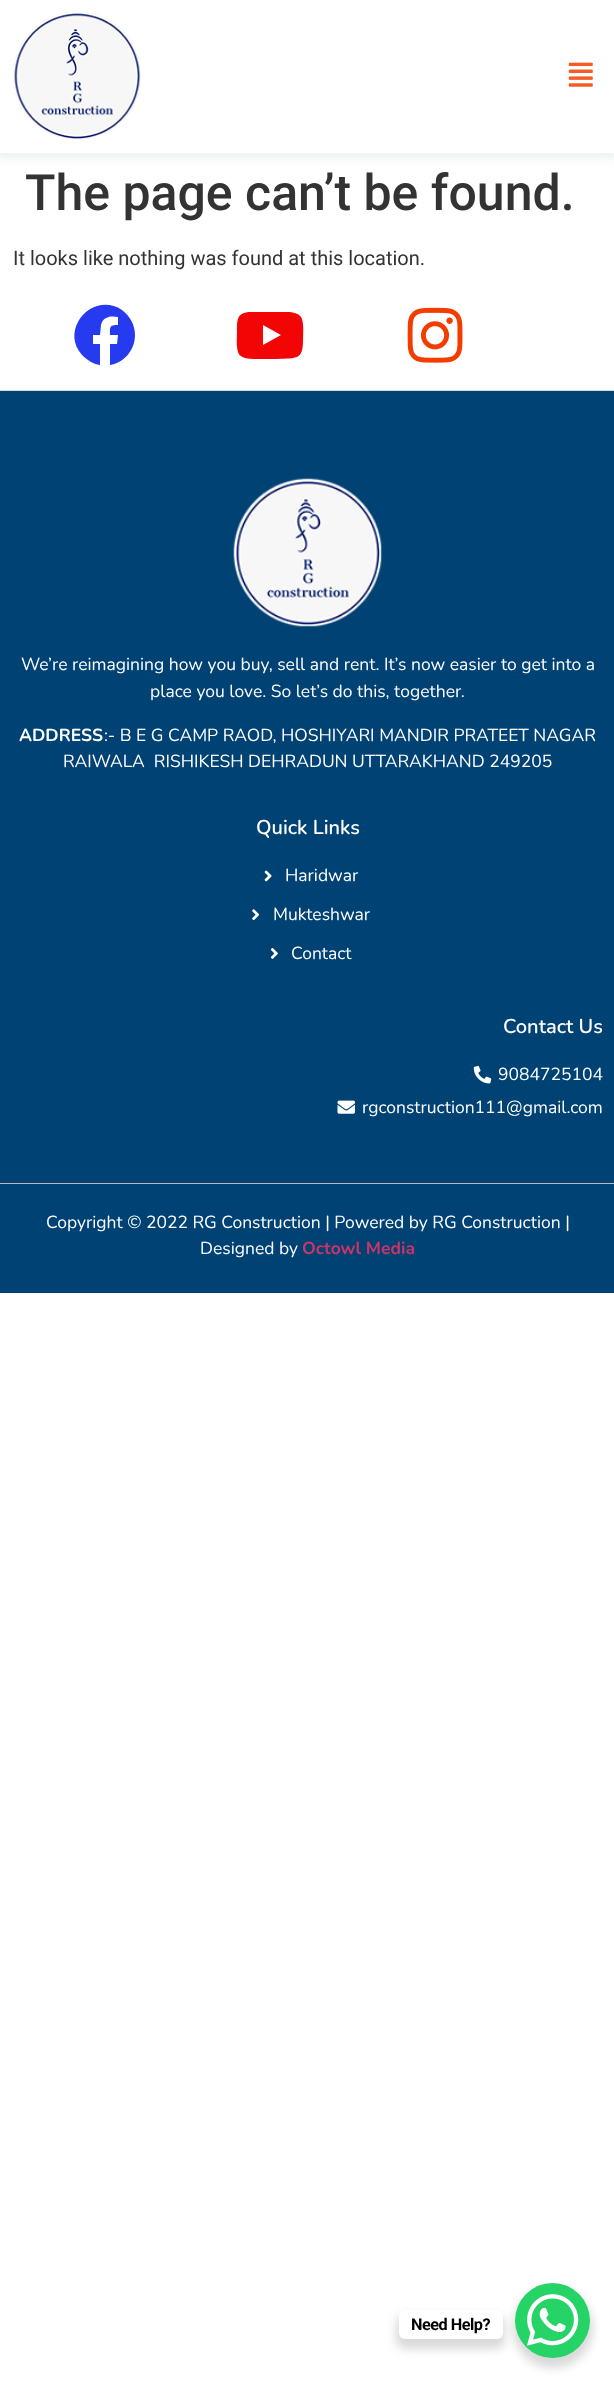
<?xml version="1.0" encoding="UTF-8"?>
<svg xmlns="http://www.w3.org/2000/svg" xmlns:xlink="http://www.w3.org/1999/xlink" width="614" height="2382">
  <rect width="100%" height="100%" fill="#ffffff" />
  <rect x="-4" y="-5" width="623" height="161" fill="#ccdade" fill-opacity="0.5" filter="blur(6px)" />
  <rect width="614" height="153" fill="#ffffff" />
  <image x="14" y="11" width="127" height="129" xlink:href="image1.png" />
  <image x="568" y="62" width="25" height="25" xlink:href="image2.png" />
  <path d="M 135 335 c 0 15 -11 28 -25 30 v -21 h 7 l 1 -9 h -8 c 0 -8 -1 -10 8 -10 v -8 c -6 -1 -15 -1 -17 8 l -1 10 h -7 v 9 h 7 v 21 c -7 -1 -13 -5 -18 -10 c -23 -26 11 -64 40 -45 c 8 6 13 15 13 25 z" fill="#263af0" />
  <path d="M 302 319 c 2 7 1 14 1 21 c 0 20 -6 18 -26 19 h -16 c -7 0 -21 1 -23 -7 c -2 -7 -1 -14 -1 -21 c 0 -11 0 -18 12 -19 h 15 h 20 c 6 0 16 0 18 7 z m -39 26 l 18 -10 l -18 -10 z" fill="#f30505" />
  <image x="407" y="307" width="56" height="56" xlink:href="image3.png" />
  <rect y="391" width="614" height="792" fill="#004274" />
  <rect y="390" width="614" height="1" fill="#d8d8d8" />
  <image x="233" y="478" width="149" height="149" xlink:href="image4.png" />
  <image x="264" y="870" width="8" height="12" xlink:href="image5.png" />
  <image x="252" y="909" width="8" height="12" xlink:href="image6.png" />
  <image x="270" y="948" width="8" height="11" xlink:href="image7.png" />
  <image x="473" y="1066" width="19" height="18" xlink:href="image8.png" />
  <image x="337" y="1100" width="18" height="14" xlink:href="image9.png" />
  <rect y="1184" width="614" height="109" fill="#004274" />
  <rect y="1183" width="614" height="1" fill="#bcbcbc" />
  <rect x="513" y="2288" width="80" height="80" rx="40" fill="#000000" fill-opacity="0.15" filter="blur(5px)" />
  <circle cx="552.5" cy="2320.5" r="37.5" fill="#25d366" />
  <rect x="396" y="2315" width="109" height="34" rx="9" fill="#000000" fill-opacity="0.15" filter="blur(5px)" />
  <rect x="399" y="2310" width="104" height="29" rx="6" fill="#ffffff" />
  <image x="527" y="2294" width="52" height="52" xlink:href="image10.png" />
  <text x="25" y="210" style="font-family: Roboto; font-size: 50px; font-weight: 500; fill: #333333">The page can’t be found.</text>
  <text x="13" y="265" style="font-family: Roboto; font-size: 20px; fill: #333333">It looks like nothing was found at this location.</text>
  <text x="21" y="670" style="font-family: Nunito; font-size: 17.5px; fill: #ffffff">We’re reimagining how you buy, sell and rent. It’s now easier to get into a</text>
  <text x="150" y="697" style="font-family: Nunito; font-size: 17.5px; fill: #ffffff">place you love. So let’s do this, together.</text>
  <text x="19" y="741" style="font-family: Nunito; font-size: 17.5px; font-weight: bold; fill: #ffffff">ADDRESS</text>
  <text x="104" y="741" style="font-family: Nunito; font-size: 17.5px; fill: #ffffff">:- B E G CAMP RAOD, HOSHIYARI MANDIR PRATEET NAGAR</text>
  <text x="63" y="767" style="font-family: Nunito; font-size: 17.5px; fill: #ffffff" xml:space="preserve">RAIWALA  RISHIKESH DEHRADUN UTTARAKHAND 249205</text>
  <text x="256" y="834" style="font-family: Nunito; font-size: 20px; font-weight: 600; fill: #ffffff">Quick Links</text>
  <text x="285" y="881" style="font-family: Nunito; font-size: 17.5px; fill: #ffffff">Haridwar</text>
  <text x="273" y="920" style="font-family: Nunito; font-size: 17.5px; fill: #ffffff">Mukteshwar</text>
  <text x="291" y="959" style="font-family: Nunito; font-size: 17.5px; fill: #ffffff">Contact</text>
  <text x="503" y="1033" style="font-family: Nunito; font-size: 20px; font-weight: 600; fill: #ffffff">Contact Us</text>
  <text x="498" y="1080" style="font-family: Nunito; font-size: 17.5px; fill: #ffffff">9084725104</text>
  <text x="362" y="1113" style="font-family: Nunito; font-size: 17.5px; fill: #ffffff">rgconstruction111@gmail.com</text>
  <text x="46" y="1228" style="font-family: Nunito; font-size: 17.5px; fill: #ffffff">Copyright © 2022 RG Construction | Powered by RG Construction |</text>
  <text x="200" y="1254" style="font-family: Nunito; font-size: 17.5px; fill: #ffffff">Designed by</text>
  <text x="302" y="1254" style="font-family: Nunito; font-size: 17.5px; font-weight: bold; fill: #cc3366">Octowl Media</text>
  <text x="411" y="2330" style="font-family: Roboto; font-size: 16.25px; font-weight: bold; letter-spacing: -0.5px; fill: #000000">Need Help?</text>
</svg>
